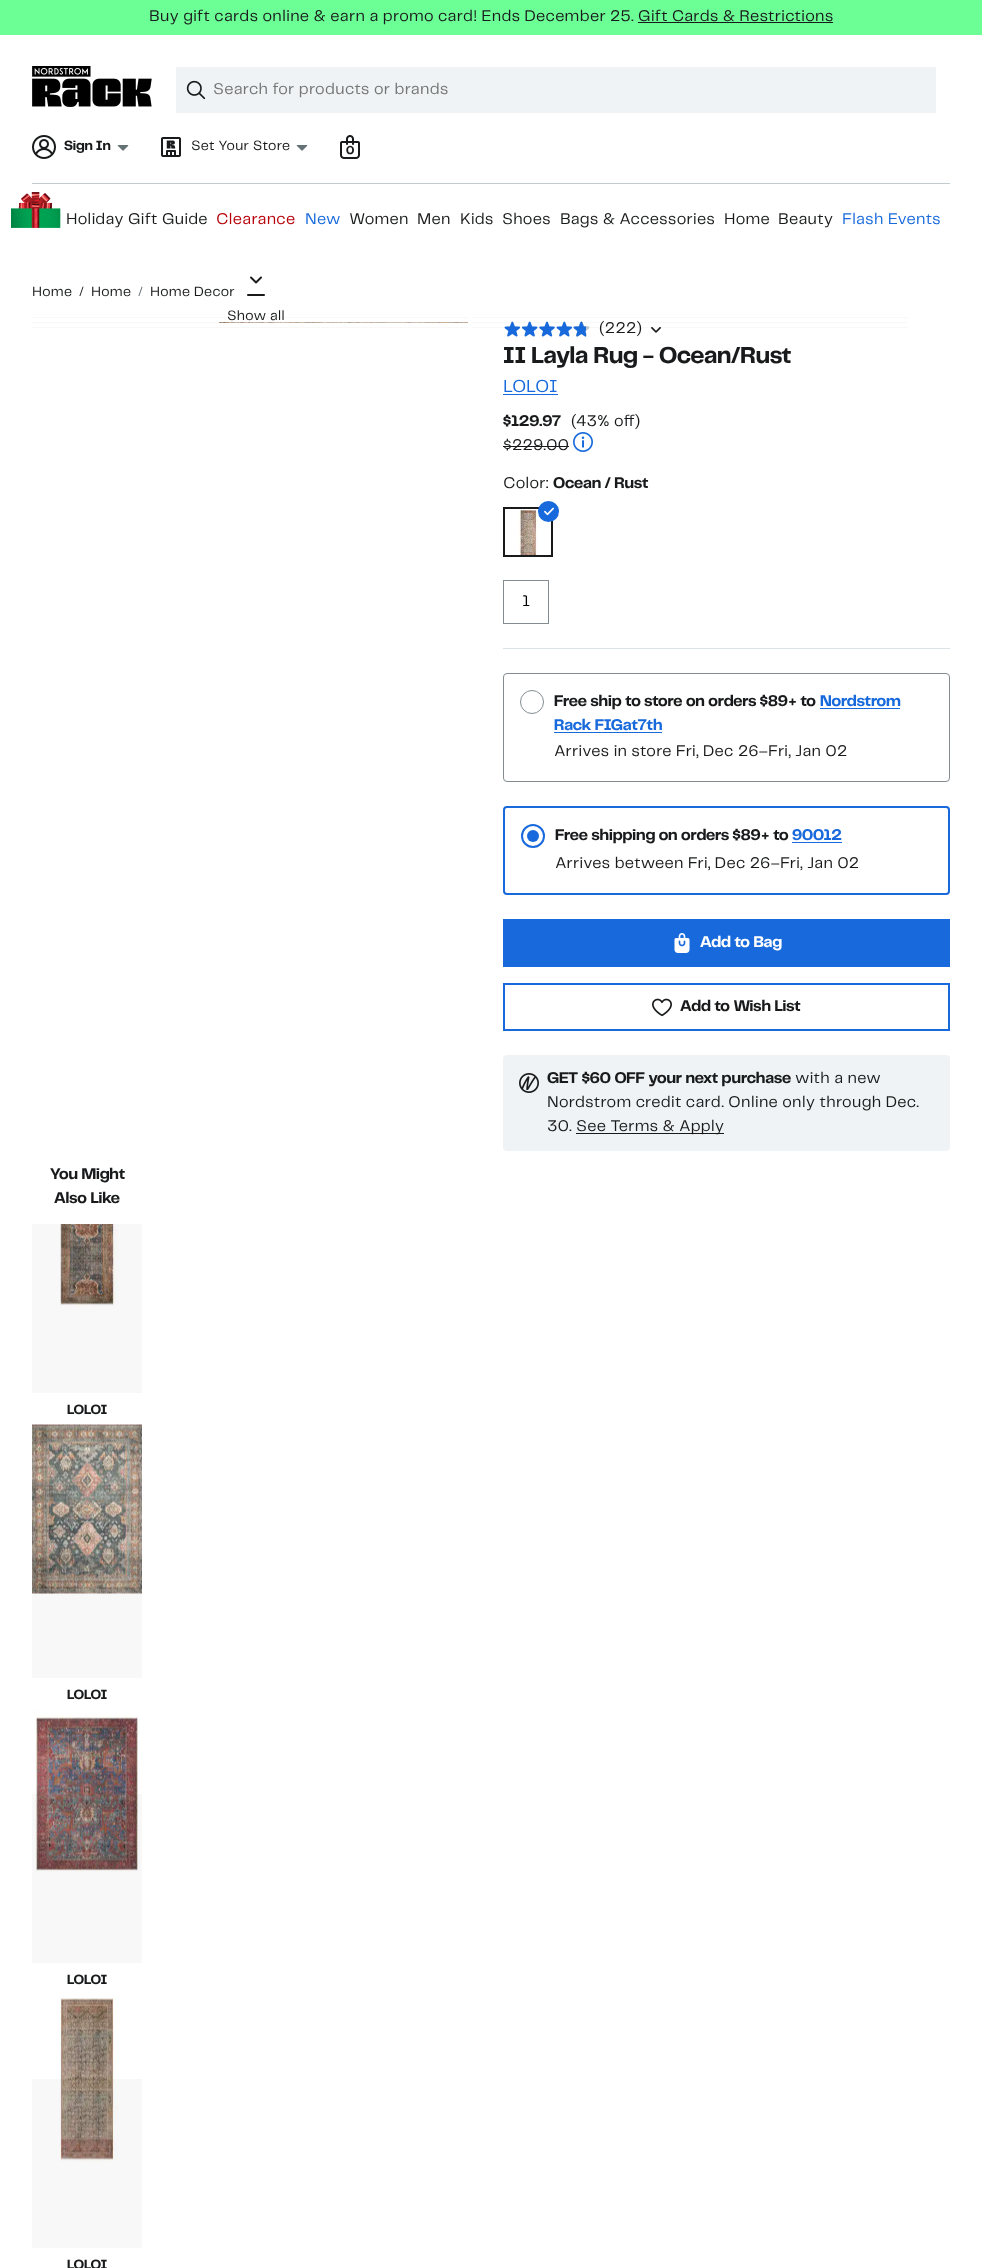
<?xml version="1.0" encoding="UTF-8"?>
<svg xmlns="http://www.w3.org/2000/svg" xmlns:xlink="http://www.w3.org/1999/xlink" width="982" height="2268">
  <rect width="100%" height="100%" fill="#ffffff" />
  <rect x="32" y="322" width="185" height="1" fill="#f8f8f8" />
  <rect x="32" y="1224" width="110" height="169" fill="#f8f8f8" />
  <rect width="982" height="35" fill="#6cff96" />
  <rect x="638" y="22" width="195" height="1" fill="#191a1b" />
  <image x="32" y="66" width="120" height="41" xlink:href="image1.png" />
  <rect x="176" y="67" width="760" height="46" fill="#f0f3f5" />
  <image x="186" y="80" width="20" height="20" xlink:href="image2.png" />
  <image x="32" y="135" width="24" height="24" xlink:href="image3.png" />
  <image x="117" y="145" width="12" height="6" xlink:href="image4.png" />
  <image x="161" y="137" width="20" height="20" xlink:href="image5.png" />
  <image x="296" y="145" width="12" height="6" xlink:href="image4.png" />
  <image x="340" y="135" width="20" height="24" xlink:href="image6.png" />
  <rect x="32" y="183" width="918" height="1" fill="#c2cbcd" />
  <image x="60" y="213" width="1" height="5" xlink:href="image8.png" />
  <image x="11" y="192" width="50" height="36" xlink:href="image7.png" />
  <image x="250" y="276" width="12" height="8" xlink:href="image9.png" />
  <image x="247" y="294" width="18" height="2" xlink:href="image10.png" />
  <rect x="32" y="317" width="436" height="1" fill="#f8f8f8" />
  <rect x="472" y="317" width="436" height="1" fill="#f8f8f8" />
  <image x="217" y="322" width="251" height="1" xlink:href="image11.png" />
  <image x="504" y="321" width="86" height="16" xlink:href="image12.png" />
  <rect x="472" y="322" width="436" height="1" fill="#191a1b" fill-opacity="0.03" />
  <rect x="32" y="327" width="436" height="1" fill="#f8f8f8" />
  <image x="651" y="327" width="10" height="6" xlink:href="image13.png" />
  <rect x="472" y="327" width="436" height="1" fill="#191a1b" fill-opacity="0.03" />
  <rect x="503" y="394" width="55" height="1" fill="#186adc" />
  <rect x="503" y="446" width="66" height="1" fill="#191a1b" />
  <image x="573" y="432" width="20" height="20" xlink:href="image14.png" />
  <rect x="503.5" y="507.5" width="49" height="49" fill="none" stroke="#191a1b" />
  <rect x="504.5" y="508.5" width="47" height="47" fill="none" stroke="#191a1b" />
  <circle cx="548.5" cy="511.5" r="10.5" fill="#186adc" />
  <image x="544" y="507" width="10" height="9" xlink:href="image15.png" />
  <image x="518" y="509" width="20" height="46" xlink:href="image16.png" />
  <rect x="503.5" y="580.5" width="45" height="43" fill="none" stroke="#838d91" />
  <rect x="503" y="648" width="447" height="1" fill="#dce3e6" />
  <rect x="503.5" y="673.5" width="446" height="108" rx="3.5" fill="none" stroke="#838d91" />
  <circle cx="532" cy="702" r="11.5" fill="none" stroke="#838d91" />
  <rect x="820" y="708" width="80" height="1" fill="#186adc" />
  <rect x="554" y="732" width="108" height="1" fill="#186adc" />
  <rect x="504" y="807" width="445" height="87" rx="3" fill="none" stroke="#186adc" stroke-width="2" />
  <circle cx="533" cy="836" r="11" fill="none" stroke="#186adc" stroke-width="2" />
  <circle cx="533" cy="836" r="6" fill="#186adc" />
  <rect x="792" y="842" width="50" height="1" fill="#186adc" />
  <rect x="503" y="919" width="447" height="48" fill="#186adc" />
  <image x="674" y="933" width="16" height="20" xlink:href="image17.png" />
  <rect x="504" y="984" width="445" height="46" fill="none" stroke="#186adc" stroke-width="2" />
  <image x="652" y="998" width="20" height="19" xlink:href="image18.png" />
  <rect x="503" y="1055" width="447" height="96" rx="4" fill="#f0f3f5" />
  <image x="519" y="1073" width="20" height="20" xlink:href="image19.png" />
  <rect x="576" y="1133" width="148" height="1" fill="#191a1b" />
  <image x="60" y="1224" width="58" height="83" xlink:href="image20.png" />
  <image x="32" y="1424" width="110" height="170" xlink:href="image21.png" />
  <rect x="32" y="1509" width="110" height="169" fill="#191a1b" fill-opacity="0.03" />
  <image x="35" y="1709" width="105" height="163" xlink:href="image22.png" />
  <rect x="32" y="1794" width="110" height="169" fill="#191a1b" fill-opacity="0.03" />
  <image x="58" y="1994" width="60" height="168" xlink:href="image23.png" />
  <rect x="32" y="2079" width="110" height="169" fill="#191a1b" fill-opacity="0.03" />
  <text x="149" y="21" style="font-family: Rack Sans; font-size: 16px; fill: #191a1b">Buy gift cards online &amp; earn a promo card! Ends December 25. Gift Cards &amp; Restrictions</text>
  <text x="213" y="94" style="font-family: Rack Sans; font-size: 16px; fill: #757575">Search for products or brands</text>
  <text x="64" y="150" style="font-family: Rack Sans; font-size: 14px; font-weight: bold; fill: #191a1b">Sign In</text>
  <text x="191" y="150" style="font-family: Rack Sans; font-size: 14px; fill: #191a1b">Set Your Store</text>
  <text x="346" y="154" style="font-family: Rack Sans; font-size: 12px; font-weight: bold; fill: #191a1b">0</text>
  <text x="66" y="224" style="font-family: Rack Sans; font-size: 16px; fill: #191a1b">Holiday Gift Guide</text>
  <text x="216" y="224" style="font-family: Rack Sans; font-size: 16px; fill: #b80009">Clearance</text>
  <text x="305" y="224" style="font-family: Rack Sans; font-size: 16px; fill: #186adc">New</text>
  <text x="349" y="224" style="font-family: Rack Sans; font-size: 16px; fill: #191a1b">Women</text>
  <text x="417" y="224" style="font-family: Rack Sans; font-size: 16px; fill: #191a1b">Men</text>
  <text x="460" y="224" style="font-family: Rack Sans; font-size: 16px; fill: #191a1b">Kids</text>
  <text x="502" y="224" style="font-family: Rack Sans; font-size: 16px; fill: #191a1b">Shoes</text>
  <text x="560" y="224" style="font-family: Rack Sans; font-size: 16px; fill: #191a1b">Bags &amp; Accessories</text>
  <text x="724" y="224" style="font-family: Rack Sans; font-size: 16px; fill: #191a1b">Home</text>
  <text x="778" y="224" style="font-family: Rack Sans; font-size: 16px; fill: #191a1b">Beauty</text>
  <text x="842" y="224" style="font-family: Rack Sans; font-size: 16px; fill: #186adc">Flash Events</text>
  <text x="32" y="296" style="font-family: Rack Sans; font-size: 14px; fill: #191a1b">Home</text>
  <text x="79" y="296" style="font-family: Rack Sans; font-size: 14px; fill: #191a1b">/</text>
  <text x="91" y="296" style="font-family: Rack Sans; font-size: 14px; fill: #191a1b">Home</text>
  <text x="138" y="296" style="font-family: Rack Sans; font-size: 14px; fill: #647175">/</text>
  <text x="150" y="296" style="font-family: Rack Sans; font-size: 14px; fill: #191a1b">Home Decor</text>
  <text x="227" y="320" style="font-family: Rack Sans; font-size: 14px; fill: #191a1b">Show all</text>
  <text x="599" y="333" style="font-family: Rack Sans; font-size: 16px; fill: #191a1b">(222)</text>
  <text x="503" y="363" style="font-family: Rack Sans; font-size: 24px; font-weight: bold; fill: #191a1b">II Layla Rug - Ocean/Rust</text>
  <text x="503" y="392" style="font-family: Rack Sans; font-size: 18px; fill: #186adc">LOLOI</text>
  <text x="503" y="426" style="font-family: Rack Sans; font-size: 16px; font-weight: bold; fill: #191a1b">$129.97</text>
  <text x="571" y="426" style="font-family: Rack Sans; font-size: 16px; fill: #191a1b">(43% off)</text>
  <text x="503" y="450" style="font-family: Rack Sans; font-size: 16px; fill: #191a1b">$229.00</text>
  <text x="503" y="488" style="font-family: Rack Sans; font-size: 16px; fill: #191a1b">Color:</text>
  <text x="553" y="488" style="font-family: Rack Sans; font-size: 16px; font-weight: bold; fill: #191a1b">Ocean / Rust</text>
  <text x="522" y="606" style="font-family: Rack Sans; font-size: 16px; fill: #000000">1</text>
  <text x="554" y="706" style="font-family: Rack Sans; font-size: 16px; font-weight: bold; fill: #191a1b">Free ship to store on orders $89+ to</text>
  <text x="820" y="706" style="font-family: Rack Sans; font-size: 16px; font-weight: bold; fill: #186adc">Nordstrom</text>
  <text x="554" y="730" style="font-family: Rack Sans; font-size: 16px; font-weight: bold; fill: #186adc">Rack FIGat7th</text>
  <text x="554" y="756" style="font-family: Rack Sans; font-size: 16px; fill: #191a1b">Arrives in store Fri, Dec 26–Fri, Jan 02</text>
  <text x="555" y="840" style="font-family: Rack Sans; font-size: 16px; font-weight: bold; fill: #191a1b">Free shipping on orders $89+ to</text>
  <text x="792" y="840" style="font-family: Rack Sans; font-size: 16px; font-weight: bold; fill: #186adc">90012</text>
  <text x="555" y="868" style="font-family: Rack Sans; font-size: 16px; fill: #191a1b">Arrives between Fri, Dec 26–Fri, Jan 02</text>
  <text x="700" y="947" style="font-family: Rack Sans; font-size: 16px; font-weight: bold; fill: #ffffff">Add to Bag</text>
  <text x="680" y="1011" style="font-family: Rack Sans; font-size: 16px; font-weight: bold; fill: #191a1b">Add to Wish List</text>
  <text x="547" y="1083" style="font-family: Rack Sans; font-size: 16px; font-weight: bold; fill: #191a1b">GET $60 OFF your next purchase</text>
  <text x="795" y="1083" style="font-family: Rack Sans; font-size: 16px; fill: #191a1b">with a new</text>
  <text x="547" y="1107" style="font-family: Rack Sans; font-size: 16px; fill: #191a1b">Nordstrom credit card. Online only through Dec.</text>
  <text x="547" y="1131" style="font-family: Rack Sans; font-size: 16px; fill: #191a1b">30.</text>
  <text x="576" y="1131" style="font-family: Rack Sans; font-size: 16px; fill: #191a1b">See Terms &amp; Apply</text>
  <text x="50" y="1179" style="font-family: Rack Sans; font-size: 16px; font-weight: bold; fill: #191a1b">You Might</text>
  <text x="54" y="1203" style="font-family: Rack Sans; font-size: 16px; font-weight: bold; fill: #191a1b">Also Like</text>
  <text x="67" y="1414" style="font-family: Rack Sans; font-size: 14px; font-weight: bold; fill: #191a1b">LOLOI</text>
  <text x="67" y="1699" style="font-family: Rack Sans; font-size: 14px; font-weight: bold; fill: #191a1b">LOLOI</text>
  <text x="67" y="1984" style="font-family: Rack Sans; font-size: 14px; font-weight: bold; fill: #191a1b">LOLOI</text>
  <text x="67" y="2269" style="font-family: Rack Sans; font-size: 14px; font-weight: bold; fill: #191a1b">LOLOI</text>
</svg>
